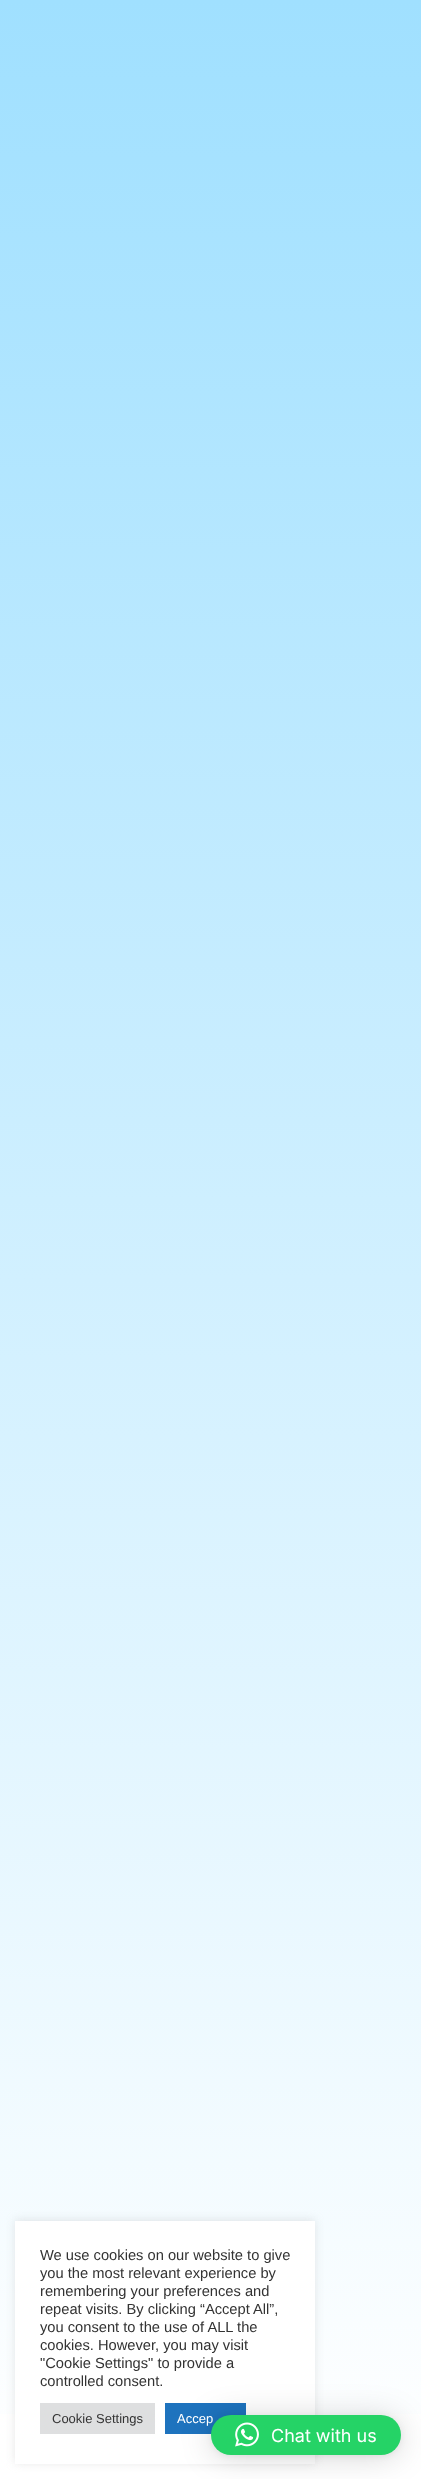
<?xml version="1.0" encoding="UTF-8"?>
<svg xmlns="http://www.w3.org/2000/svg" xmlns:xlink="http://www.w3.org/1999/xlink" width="421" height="2479">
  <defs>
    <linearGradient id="g1" gradientUnits="userSpaceOnUse" x1="210" y1="0" x2="211" y2="2479"><stop offset="0" stop-color="#a0e0ff" /><stop offset="1" stop-color="#ffffff" /></linearGradient>
  </defs>
  <rect width="100%" height="100%" fill="#ffffff" />
  <rect width="421" height="2414" fill="url(#g1)" />
  <rect x="15" y="2220" width="300" height="243" fill="#acabab" fill-opacity="0.3" filter="blur(5px)" />
  <rect x="15" y="2221" width="300" height="243" fill="#ffffff" />
  <rect x="40" y="2403" width="115" height="31" fill="#dedfe0" />
  <rect x="165" y="2403" width="81" height="31" fill="#1e73be" />
  <rect x="211" y="2417" width="190" height="40" rx="20" fill="#000000" fill-opacity="0.16" filter="blur(16px)" />
  <rect x="211" y="2416" width="190" height="40" rx="20" fill="#000000" fill-opacity="0.06" filter="blur(3px)" />
  <text x="40" y="2260" style="font-family: Liberation Sans; font-size: 14.7px; fill: #333333">We use cookies on our website to give</text>
  <text x="40" y="2278" style="font-family: Liberation Sans; font-size: 14.7px; fill: #333333">you the most relevant experience by</text>
  <text x="40" y="2296" style="font-family: Liberation Sans; font-size: 14.7px; fill: #333333">remembering your preferences and</text>
  <text x="40" y="2314" style="font-family: Liberation Sans; font-size: 14.7px; fill: #333333">repeat visits. By clicking “Accept All”,</text>
  <text x="40" y="2332" style="font-family: Liberation Sans; font-size: 14.7px; fill: #333333">you consent to the use of ALL the</text>
  <text x="40" y="2350" style="font-family: Liberation Sans; font-size: 14.7px; fill: #333333">cookies. However, you may visit</text>
  <text x="40" y="2368" style="font-family: Liberation Sans; font-size: 14.7px; fill: #333333">"Cookie Settings" to provide a</text>
  <text x="40" y="2386" style="font-family: Liberation Sans; font-size: 14.7px; fill: #333333">controlled consent.</text>
  <text x="52" y="2423" style="font-family: Liberation Sans; font-size: 13px; fill: #333333">Cookie Settings</text>
  <text x="177" y="2423" style="font-family: Liberation Sans; font-size: 13px; fill: #ffffff">Accep</text>
  <rect x="211" y="2415" width="190" height="40" rx="20" fill="#25d366" />
  <image x="235" y="2422" width="24" height="25" xlink:href="image1.png" />
  <text x="271" y="2442" style="font-family: Inter; font-size: 18px; fill: #ffffff">Chat with us</text>
</svg>
